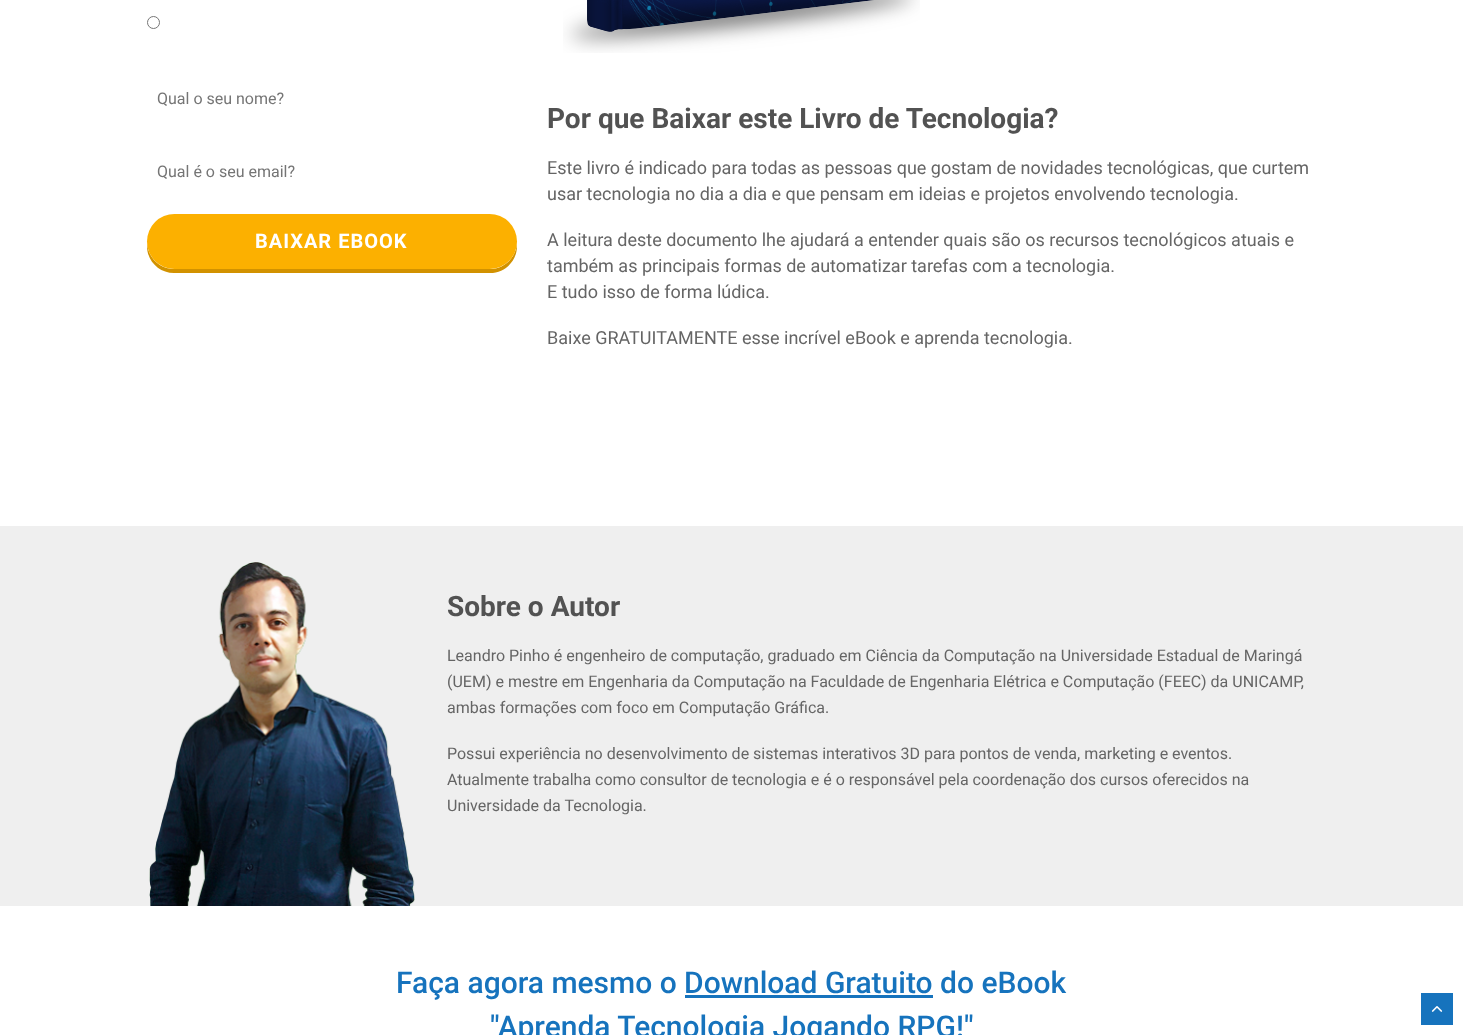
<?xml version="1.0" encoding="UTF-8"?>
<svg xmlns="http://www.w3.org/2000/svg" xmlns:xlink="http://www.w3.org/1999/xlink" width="1463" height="1035">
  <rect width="100%" height="100%" fill="#ffffff" />
  <circle cx="153.5" cy="22.5" r="6" fill="none" stroke="#767676" />
  <path d="M 147 243 v 3 c 0 15 12 27 27 27 h 316 c 15 0 27 -12 27 -27 v -3 c -1 15 -13 26 -27 26 h -316 c -14 0 -26 -11 -27 -26 z" fill="#d29200" />
  <rect x="147" y="214" width="370" height="55" rx="27.5" fill="#fcb000" />
  <image x="563" y="0" width="357" height="53" xlink:href="image1.png" />
  <rect y="526" width="1463" height="380" fill="#efefef" />
  <image x="149" y="562" width="266" height="344" xlink:href="image2.png" />
  <rect x="685" y="995" width="248" height="3" fill="#1673bd" />
  <image x="1421" y="993" width="32" height="32" xlink:href="image3.png" />
  <text x="157" y="104" style="font-family: Roboto; font-size: 16px; fill: #757575">Qual o seu nome?</text>
  <text x="157" y="177" style="font-family: Roboto; font-size: 16px; fill: #757575">Qual é o seu email?</text>
  <text x="255" y="248" style="font-family: Roboto; font-size: 20px; font-weight: bold; letter-spacing: 1px; fill: #ffffff">BAIXAR EBOOK</text>
  <text x="547" y="128" style="font-family: Roboto; font-size: 28px; font-weight: bold; fill: #525252">Por que Baixar este Livro de Tecnologia?</text>
  <text x="547" y="174" style="font-family: Roboto; font-size: 18px; fill: #656565">Este livro é indicado para todas as pessoas que gostam de novidades tecnológicas, que curtem</text>
  <text x="547" y="200" style="font-family: Roboto; font-size: 18px; fill: #656565">usar tecnologia no dia a dia e que pensam em ideias e projetos envolvendo tecnologia.</text>
  <text x="547" y="246" style="font-family: Roboto; font-size: 18px; fill: #656565">A leitura deste documento lhe ajudará a entender quais são os recursos tecnológicos atuais e</text>
  <text x="547" y="272" style="font-family: Roboto; font-size: 18px; fill: #656565">também as principais formas de automatizar tarefas com a tecnologia.</text>
  <text x="547" y="298" style="font-family: Roboto; font-size: 18px; fill: #656565">E tudo isso de forma lúdica.</text>
  <text x="547" y="344" style="font-family: Roboto; font-size: 18px; fill: #656565">Baixe GRATUITAMENTE esse incrível eBook e aprenda tecnologia.</text>
  <text x="447" y="616" style="font-family: Roboto; font-size: 28px; font-weight: bold; fill: #525252">Sobre o Autor</text>
  <text x="447" y="661" style="font-family: Roboto; font-size: 16px; fill: #656565">Leandro Pinho é engenheiro de computação, graduado em Ciência da Computação na Universidade Estadual de Maringá</text>
  <text x="447" y="687" style="font-family: Roboto; font-size: 16px; fill: #656565">(UEM) e mestre em Engenharia da Computação na Faculdade de Engenharia Elétrica e Computação (FEEC) da UNICAMP,</text>
  <text x="447" y="713" style="font-family: Roboto; font-size: 16px; fill: #656565">ambas formações com foco em Computação Gráfica.</text>
  <text x="447" y="759" style="font-family: Roboto; font-size: 16px; fill: #656565">Possui experiência no desenvolvimento de sistemas interativos 3D para pontos de venda, marketing e eventos.</text>
  <text x="447" y="785" style="font-family: Roboto; font-size: 16px; fill: #656565">Atualmente trabalha como consultor de tecnologia e é o responsável pela coordenação dos cursos oferecidos na</text>
  <text x="447" y="811" style="font-family: Roboto; font-size: 16px; fill: #656565">Universidade da Tecnologia.</text>
  <text x="396" y="993" style="font-family: Roboto; font-size: 30px; font-weight: 500; fill: #1673bd">Faça agora mesmo o Download Gratuito do eBook</text>
  <text x="490" y="1037" style="font-family: Roboto; font-size: 30px; font-weight: 500; fill: #1673bd">"Aprenda Tecnologia Jogando RPG!"</text>
</svg>
